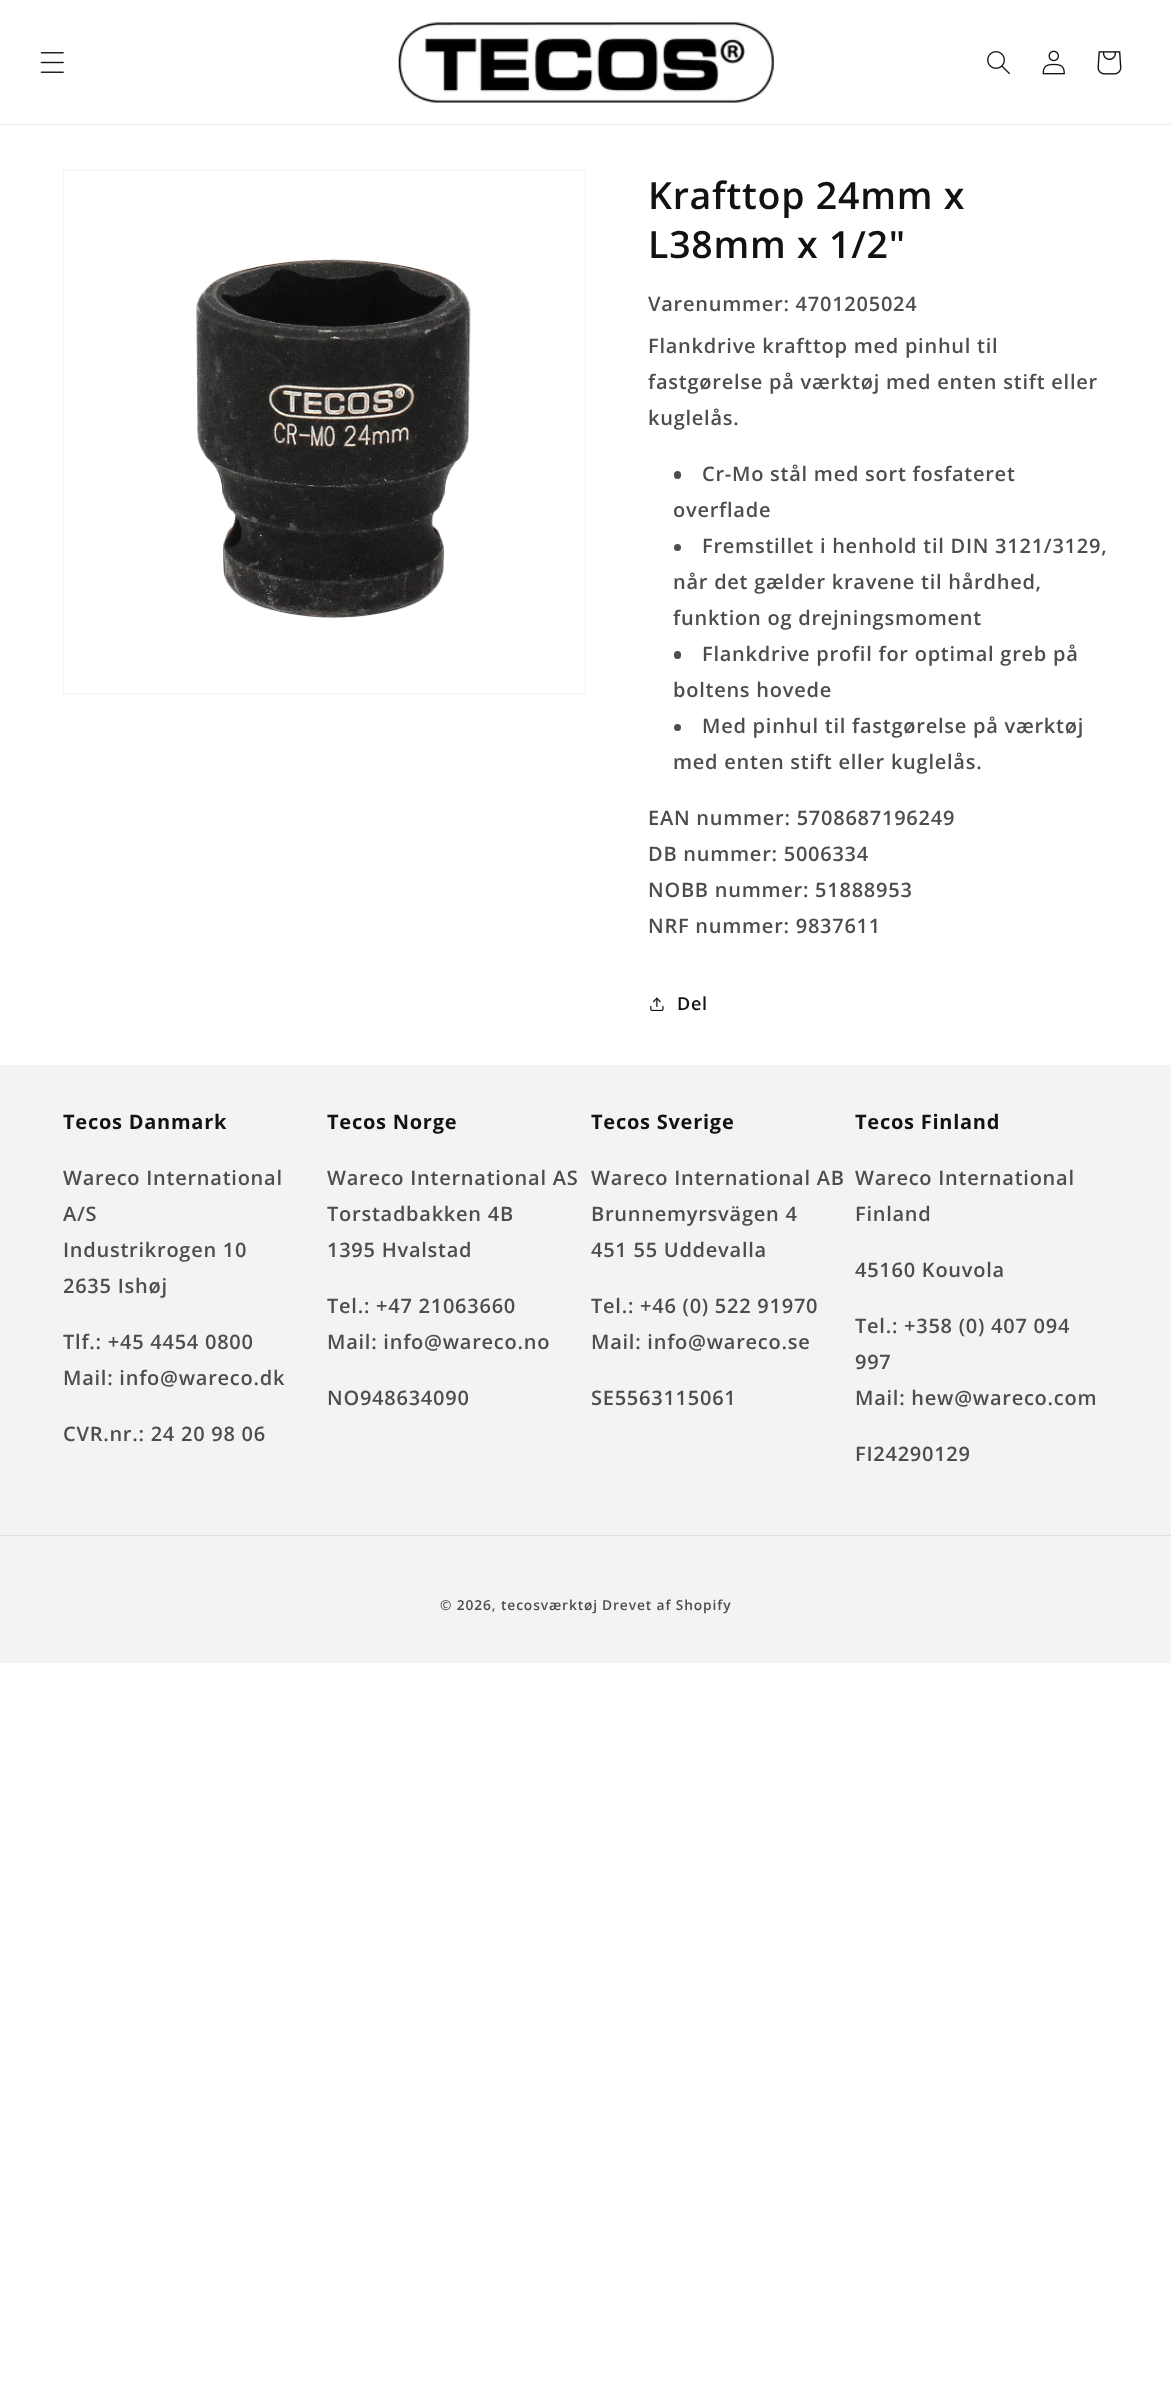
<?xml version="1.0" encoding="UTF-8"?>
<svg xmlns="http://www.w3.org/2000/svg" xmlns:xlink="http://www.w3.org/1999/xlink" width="1171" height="2386">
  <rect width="100%" height="100%" fill="#ffffff" />
  <rect y="124" width="1171" height="1" fill="#ececec" />
  <image x="40" y="52" width="24" height="21" xlink:href="image1.png" />
  <image x="398" y="22" width="376" height="81" xlink:href="image2.png" />
  <image x="987" y="51" width="23" height="24" xlink:href="image3.png" />
  <image x="1042" y="50" width="23" height="25" xlink:href="image4.png" />
  <image x="1097" y="51" width="25" height="24" xlink:href="image5.png" />
  <rect x="63.5" y="170.5" width="522" height="523" fill="none" stroke="#f3f3f3" />
  <image x="196" y="259" width="275" height="359" xlink:href="image6.png" />
  <rect x="674" y="471" width="7" height="8" rx="3.5" fill="#4d4d4d" />
  <circle cx="677.5" cy="547.5" r="3.5" fill="#4d4d4d" />
  <rect x="674" y="651" width="7" height="8" rx="3.5" fill="#4d4d4d" />
  <circle cx="677.5" cy="727.5" r="3.5" fill="#4d4d4d" />
  <image x="650" y="997" width="14" height="14" xlink:href="image7.png" />
  <rect y="1065" width="1171" height="598" fill="#f3f3f3" />
  <rect y="1535" width="1171" height="1" fill="#e1e1e1" />
  <text x="648" y="209" style="font-family: Open Sans; font-size: 37.5px; font-weight: 600; letter-spacing: 0.75px; fill: #121212">Krafttop 24mm x</text>
  <text x="648" y="258" style="font-family: Open Sans; font-size: 37.5px; font-weight: 600; letter-spacing: 0.75px; fill: #121212">L38mm x 1/2"</text>
  <text x="648" y="311" style="font-family: Open Sans; font-size: 20px; font-weight: 600; letter-spacing: 0.75px; fill: #4d4d4d">Varenummer: 4701205024</text>
  <text x="648" y="353" style="font-family: Open Sans; font-size: 20px; font-weight: 600; letter-spacing: 0.75px; fill: #4d4d4d">Flankdrive krafttop med pinhul til</text>
  <text x="648" y="389" style="font-family: Open Sans; font-size: 20px; font-weight: 600; letter-spacing: 0.75px; fill: #4d4d4d">fastgørelse på værktøj med enten stift eller</text>
  <text x="648" y="425" style="font-family: Open Sans; font-size: 20px; font-weight: 600; letter-spacing: 0.75px; fill: #4d4d4d">kuglelås.</text>
  <text x="702" y="481" style="font-family: Open Sans; font-size: 20px; font-weight: 600; letter-spacing: 0.75px; fill: #4d4d4d">Cr-Mo stål med sort fosfateret</text>
  <text x="673" y="517" style="font-family: Open Sans; font-size: 20px; font-weight: 600; letter-spacing: 0.75px; fill: #4d4d4d">overflade</text>
  <text x="702" y="553" style="font-family: Open Sans; font-size: 20px; font-weight: 600; letter-spacing: 0.75px; fill: #4d4d4d">Fremstillet i henhold til DIN 3121/3129,</text>
  <text x="673" y="589" style="font-family: Open Sans; font-size: 20px; font-weight: 600; letter-spacing: 0.75px; fill: #4d4d4d">når det gælder kravene til hårdhed,</text>
  <text x="673" y="625" style="font-family: Open Sans; font-size: 20px; font-weight: 600; letter-spacing: 0.75px; fill: #4d4d4d">funktion og drejningsmoment</text>
  <text x="702" y="661" style="font-family: Open Sans; font-size: 20px; font-weight: 600; letter-spacing: 0.75px; fill: #4d4d4d">Flankdrive profil for optimal greb på</text>
  <text x="673" y="697" style="font-family: Open Sans; font-size: 20px; font-weight: 600; letter-spacing: 0.75px; fill: #4d4d4d">boltens hovede</text>
  <text x="702" y="733" style="font-family: Open Sans; font-size: 20px; font-weight: 600; letter-spacing: 0.75px; fill: #4d4d4d">Med pinhul til fastgørelse på værktøj</text>
  <text x="673" y="769" style="font-family: Open Sans; font-size: 20px; font-weight: 600; letter-spacing: 0.75px; fill: #4d4d4d">med enten stift eller kuglelås.</text>
  <text x="648" y="825" style="font-family: Open Sans; font-size: 20px; font-weight: 600; letter-spacing: 0.75px; fill: #4d4d4d">EAN nummer: 5708687196249</text>
  <text x="648" y="861" style="font-family: Open Sans; font-size: 20px; font-weight: 600; letter-spacing: 0.75px; fill: #4d4d4d">DB nummer: 5006334</text>
  <text x="648" y="897" style="font-family: Open Sans; font-size: 20px; font-weight: 600; letter-spacing: 0.75px; fill: #4d4d4d">NOBB nummer: 51888953</text>
  <text x="648" y="933" style="font-family: Open Sans; font-size: 20px; font-weight: 600; letter-spacing: 0.75px; fill: #4d4d4d">NRF nummer: 9837611</text>
  <text x="677" y="1010" style="font-family: Open Sans; font-size: 18px; font-weight: 600; letter-spacing: 0.75px; fill: #121212">Del</text>
  <text x="63" y="1129" style="font-family: Open Sans; font-size: 20px; font-weight: bold; letter-spacing: 0.75px; fill: #121212">Tecos Danmark</text>
  <text x="63" y="1185" style="font-family: Open Sans; font-size: 20px; font-weight: 600; letter-spacing: 0.75px; fill: #4d4d4d">Wareco International</text>
  <text x="63" y="1221" style="font-family: Open Sans; font-size: 20px; font-weight: 600; letter-spacing: 0.75px; fill: #4d4d4d">A/S</text>
  <text x="63" y="1257" style="font-family: Open Sans; font-size: 20px; font-weight: 600; letter-spacing: 0.75px; fill: #4d4d4d">Industrikrogen 10</text>
  <text x="63" y="1293" style="font-family: Open Sans; font-size: 20px; font-weight: 600; letter-spacing: 0.75px; fill: #4d4d4d">2635 Ishøj</text>
  <text x="63" y="1349" style="font-family: Open Sans; font-size: 20px; font-weight: 600; letter-spacing: 0.75px; fill: #4d4d4d">Tlf.: +45 4454 0800</text>
  <text x="63" y="1385" style="font-family: Open Sans; font-size: 20px; font-weight: 600; letter-spacing: 0.75px; fill: #4d4d4d">Mail: info@wareco.dk</text>
  <text x="63" y="1441" style="font-family: Open Sans; font-size: 20px; font-weight: 600; letter-spacing: 0.75px; fill: #4d4d4d">CVR.nr.: 24 20 98 06</text>
  <text x="327" y="1129" style="font-family: Open Sans; font-size: 20px; font-weight: bold; letter-spacing: 0.75px; fill: #121212">Tecos Norge</text>
  <text x="327" y="1185" style="font-family: Open Sans; font-size: 20px; font-weight: 600; letter-spacing: 0.75px; fill: #4d4d4d">Wareco International AS</text>
  <text x="327" y="1221" style="font-family: Open Sans; font-size: 20px; font-weight: 600; letter-spacing: 0.75px; fill: #4d4d4d">Torstadbakken 4B</text>
  <text x="327" y="1257" style="font-family: Open Sans; font-size: 20px; font-weight: 600; letter-spacing: 0.75px; fill: #4d4d4d">1395 Hvalstad</text>
  <text x="327" y="1313" style="font-family: Open Sans; font-size: 20px; font-weight: 600; letter-spacing: 0.75px; fill: #4d4d4d">Tel.: +47 21063660</text>
  <text x="327" y="1349" style="font-family: Open Sans; font-size: 20px; font-weight: 600; letter-spacing: 0.75px; fill: #4d4d4d">Mail: info@wareco.no</text>
  <text x="327" y="1405" style="font-family: Open Sans; font-size: 20px; font-weight: 600; letter-spacing: 0.75px; fill: #4d4d4d">NO948634090</text>
  <text x="591" y="1129" style="font-family: Open Sans; font-size: 20px; font-weight: bold; letter-spacing: 0.75px; fill: #121212">Tecos Sverige</text>
  <text x="591" y="1185" style="font-family: Open Sans; font-size: 20px; font-weight: 600; letter-spacing: 0.75px; fill: #4d4d4d">Wareco International AB</text>
  <text x="591" y="1221" style="font-family: Open Sans; font-size: 20px; font-weight: 600; letter-spacing: 0.75px; fill: #4d4d4d">Brunnemyrsvägen 4</text>
  <text x="591" y="1257" style="font-family: Open Sans; font-size: 20px; font-weight: 600; letter-spacing: 0.75px; fill: #4d4d4d">451 55 Uddevalla</text>
  <text x="591" y="1313" style="font-family: Open Sans; font-size: 20px; font-weight: 600; letter-spacing: 0.75px; fill: #4d4d4d">Tel.: +46 (0) 522 91970</text>
  <text x="591" y="1349" style="font-family: Open Sans; font-size: 20px; font-weight: 600; letter-spacing: 0.75px; fill: #4d4d4d">Mail: info@wareco.se</text>
  <text x="591" y="1405" style="font-family: Open Sans; font-size: 20px; font-weight: 600; letter-spacing: 0.75px; fill: #4d4d4d">SE5563115061</text>
  <text x="855" y="1129" style="font-family: Open Sans; font-size: 20px; font-weight: bold; letter-spacing: 0.75px; fill: #121212">Tecos Finland</text>
  <text x="855" y="1185" style="font-family: Open Sans; font-size: 20px; font-weight: 600; letter-spacing: 0.75px; fill: #4d4d4d">Wareco International</text>
  <text x="855" y="1221" style="font-family: Open Sans; font-size: 20px; font-weight: 600; letter-spacing: 0.75px; fill: #4d4d4d">Finland</text>
  <text x="855" y="1277" style="font-family: Open Sans; font-size: 20px; font-weight: 600; letter-spacing: 0.75px; fill: #4d4d4d">45160 Kouvola</text>
  <text x="855" y="1333" style="font-family: Open Sans; font-size: 20px; font-weight: 600; letter-spacing: 0.75px; fill: #4d4d4d">Tel.: +358 (0) 407 094</text>
  <text x="855" y="1369" style="font-family: Open Sans; font-size: 20px; font-weight: 600; letter-spacing: 0.75px; fill: #4d4d4d">997</text>
  <text x="855" y="1405" style="font-family: Open Sans; font-size: 20px; font-weight: 600; letter-spacing: 0.75px; fill: #4d4d4d">Mail: hew@wareco.com</text>
  <text x="855" y="1461" style="font-family: Open Sans; font-size: 20px; font-weight: 600; letter-spacing: 0.75px; fill: #4d4d4d">FI24290129</text>
  <text x="440" y="1610" style="font-family: Open Sans; font-size: 13.75px; font-weight: 600; letter-spacing: 0.9px; fill: #4d4d4d">© 2026, tecosværktøj</text>
  <text x="602" y="1610" style="font-family: Open Sans; font-size: 13.75px; font-weight: 600; letter-spacing: 0.9px; fill: #4d4d4d">Drevet af Shopify</text>
</svg>
